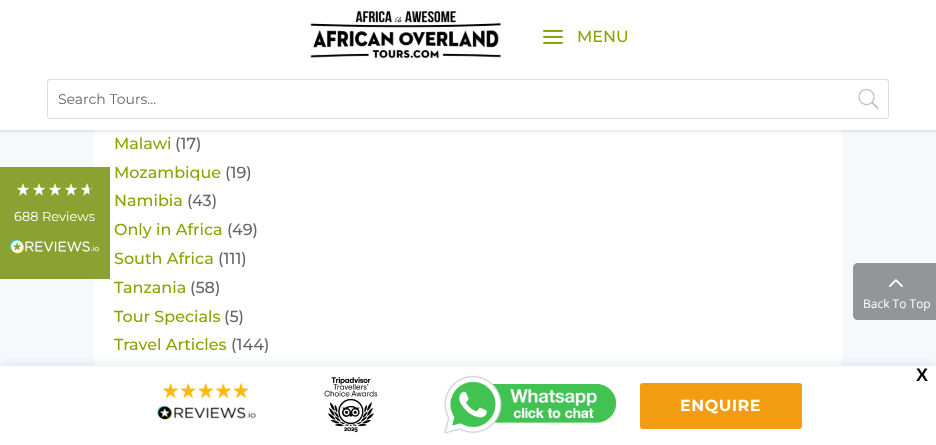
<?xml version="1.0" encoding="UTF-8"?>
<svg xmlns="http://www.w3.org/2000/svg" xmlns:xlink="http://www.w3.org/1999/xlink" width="936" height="445">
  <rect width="100%" height="100%" fill="#f6f9fc" />
  <rect x="94" y="130" width="748" height="236" fill="#ffffff" />
  <rect y="2" width="936" height="130" fill="#515873" fill-opacity="0.14" filter="blur(1.5px)" />
  <rect width="936" height="130" fill="#ffffff" />
  <image x="310" y="10" width="191" height="49" xlink:href="image1.png" />
  <image x="543" y="29" width="20" height="15" xlink:href="image2.png" />
  <rect x="47.5" y="79.5" width="841" height="39" rx="2.5" fill="none" stroke="#dddddd" />
  <image x="858" y="88" width="21" height="21" xlink:href="image3.png" />
  <rect y="167" width="110" height="112" fill="#8ba232" />
  <image x="16" y="183" width="14" height="13" xlink:href="image4.png" />
  <image x="32" y="183" width="14" height="13" xlink:href="image4.png" />
  <image x="48" y="183" width="14" height="13" xlink:href="image4.png" />
  <image x="64" y="183" width="14" height="13" xlink:href="image4.png" />
  <image x="80" y="183" width="13" height="13" xlink:href="image5.png" />
  <image x="10" y="240" width="89" height="14" xlink:href="image6.png" />
  <path d="M 858 263 h 78 v 57 h -78 c -3 0 -5 -2 -5 -5 v -47 c 0 -3 2 -5 5 -5 z" fill="#949597" />
  <image x="889" y="279" width="14" height="8" xlink:href="image7.png" />
  <rect y="366" width="936" height="79" fill="#30759d" fill-opacity="0.2" filter="blur(6px)" />
  <rect y="366" width="936" height="79" fill="#ffffff" />
  <image x="157" y="382" width="100" height="39" xlink:href="image8.png" />
  <image x="324" y="377" width="54" height="56" xlink:href="image9.png" />
  <image x="444" y="375" width="173" height="59" xlink:href="image10.png" />
  <rect x="640" y="383" width="162" height="46" rx="3" fill="#f39c12" />
  <text x="577" y="42" style="font-family: Montserrat; font-size: 16px; font-weight: 100; fill: #8ca200">MENU</text>
  <text x="58" y="104" style="font-family: 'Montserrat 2'; font-size: 14px; font-weight: 100; fill: #666666">Search Tours...</text>
  <text x="14" y="221" style="font-family: 'Montserrat 2'; font-size: 13px; font-weight: 100; fill: #ffffff">688 Reviews</text>
  <text x="114" y="149" style="font-family: Montserrat; font-size: 16px; font-weight: 100; fill: #8ca200">Malawi</text>
  <text x="175" y="149" style="font-family: Montserrat; font-size: 16px; font-weight: 100; fill: #666666">(17)</text>
  <text x="114" y="178" style="font-family: Montserrat; font-size: 16px; font-weight: 100; fill: #8ca200">Mozambique</text>
  <text x="225" y="178" style="font-family: Montserrat; font-size: 16px; font-weight: 100; fill: #666666">(19)</text>
  <text x="114" y="206" style="font-family: Montserrat; font-size: 16px; font-weight: 100; fill: #8ca200">Namibia</text>
  <text x="187" y="206" style="font-family: Montserrat; font-size: 16px; font-weight: 100; fill: #666666">(43)</text>
  <text x="114" y="235" style="font-family: Montserrat; font-size: 16px; font-weight: 100; fill: #8ca200">Only in Africa</text>
  <text x="227" y="235" style="font-family: Montserrat; font-size: 16px; font-weight: 100; fill: #666666">(49)</text>
  <text x="114" y="264" style="font-family: Montserrat; font-size: 16px; font-weight: 100; fill: #8ca200">South Africa</text>
  <text x="218" y="264" style="font-family: Montserrat; font-size: 16px; font-weight: 100; fill: #666666">(111)</text>
  <text x="114" y="293" style="font-family: Montserrat; font-size: 16px; font-weight: 100; fill: #8ca200">Tanzania</text>
  <text x="190" y="293" style="font-family: Montserrat; font-size: 16px; font-weight: 100; fill: #666666">(58)</text>
  <text x="114" y="322" style="font-family: Montserrat; font-size: 16px; font-weight: 100; fill: #8ca200">Tour Specials</text>
  <text x="224" y="322" style="font-family: Montserrat; font-size: 16px; font-weight: 100; fill: #666666">(5)</text>
  <text x="114" y="350" style="font-family: Montserrat; font-size: 16px; font-weight: 100; fill: #8ca200">Travel Articles</text>
  <text x="231" y="350" style="font-family: Montserrat; font-size: 16px; font-weight: 100; fill: #666666">(144)</text>
  <text x="863" y="308" style="font-family: Open Sans; font-size: 12px; fill: #ffffff">Back To Top</text>
  <text x="916" y="381" style="font-family: Liberation Sans; font-size: 18px; font-weight: bold; fill: #000000">X</text>
  <text x="680" y="411" style="font-family: 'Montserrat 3'; font-size: 16px; font-weight: 100; letter-spacing: 0.5px; fill: #ffffff">ENQUIRE</text>
</svg>
